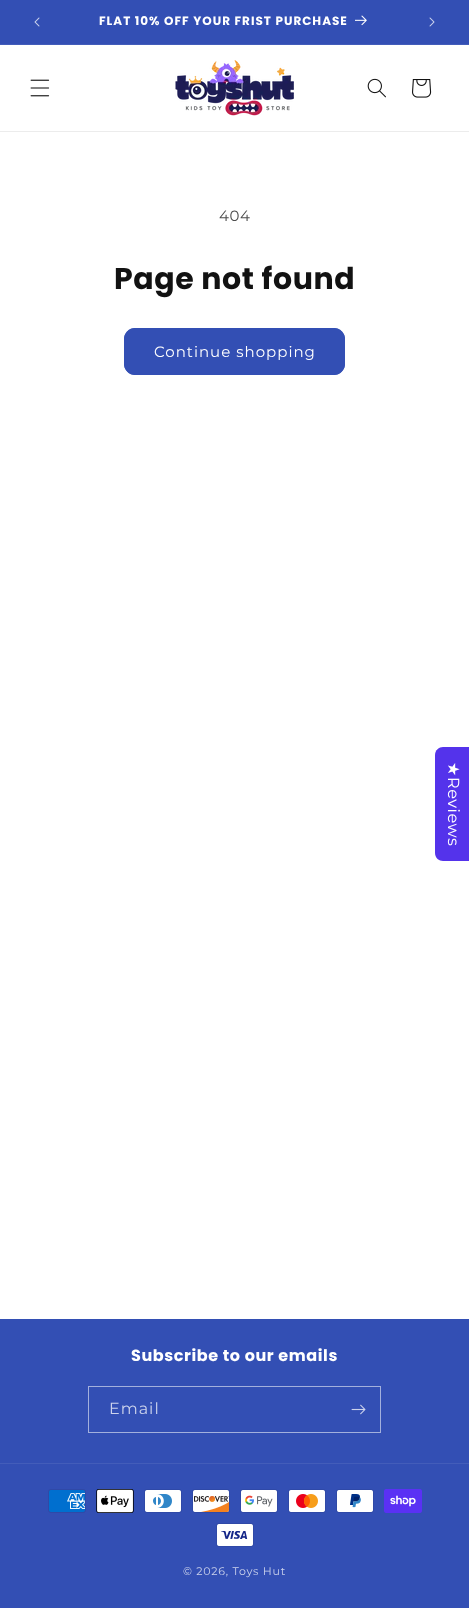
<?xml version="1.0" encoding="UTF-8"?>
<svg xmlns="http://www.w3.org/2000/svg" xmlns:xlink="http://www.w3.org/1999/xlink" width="469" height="1608">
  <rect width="100%" height="100%" fill="#ffffff" />
  <rect width="469" height="44" fill="#334fb4" />
  <rect y="44" width="469" height="1" fill="#435dba" />
  <image x="34" y="17" width="6" height="10" xlink:href="image1.png" />
  <image x="355" y="15" width="12" height="11" xlink:href="image2.png" />
  <image x="429" y="17" width="6" height="10" xlink:href="image3.png" />
  <rect y="131" width="469" height="1" fill="#ececec" />
  <image x="30" y="79" width="20" height="18" xlink:href="image4.png" />
  <image x="175" y="60" width="119" height="56" xlink:href="image5.png" />
  <image x="367" y="78" width="19" height="20" xlink:href="image6.png" />
  <image x="412" y="79" width="20" height="19" xlink:href="image7.png" />
  <rect x="124" y="328" width="221" height="47" rx="11" fill="#334fb4" />
  <rect x="124.5" y="328.5" width="220" height="46" rx="10.5" fill="none" stroke="#334fb4" />
  <path d="M 469 747 v 114 h -26 c -4 0 -8 -3 -8 -8 v -98 c 0 -5 4 -8 8 -8 z" fill="#5433eb" />
  <rect y="1319" width="469" height="289" fill="#334fb4" />
  <rect x="88.5" y="1386.5" width="292" height="46" fill="none" stroke="#a3b0dd" />
  <image x="351" y="1404" width="15" height="11" xlink:href="image8.png" />
  <rect y="1463" width="469" height="1" fill="#435dba" />
  <image x="48" y="1489" width="38" height="24" xlink:href="image9.png" />
  <image x="96" y="1489" width="38" height="24" xlink:href="image10.png" />
  <image x="144" y="1489" width="38" height="24" xlink:href="image11.png" />
  <image x="192" y="1489" width="38" height="24" xlink:href="image12.png" />
  <image x="240" y="1489" width="38" height="24" xlink:href="image13.png" />
  <image x="288" y="1489" width="38" height="24" xlink:href="image14.png" />
  <image x="336" y="1489" width="38" height="24" xlink:href="image15.png" />
  <image x="384" y="1489" width="38" height="24" xlink:href="image16.png" />
  <image x="216" y="1523" width="38" height="24" xlink:href="image17.png" />
  <text x="99" y="25" style="font-family: Poppins; font-size: 12px; font-weight: bold; letter-spacing: 1px; fill: #ffffff">FLAT 10% OFF YOUR FRIST PURCHASE</text>
  <text x="219" y="221" style="font-family: Montserrat; font-size: 15px; letter-spacing: 0.6px; fill: #4d4d4d">404</text>
  <text x="114" y="289" style="font-family: Poppins; font-size: 30px; font-weight: bold; letter-spacing: 0.6px; fill: #121212">Page not found</text>
  <text x="154" y="357" style="font-family: Montserrat; font-size: 15px; letter-spacing: 1px; fill: #ffffff">Continue shopping</text>
  <text x="448" y="762" transform="rotate(90 448 762)" style="font-family: DejaVu Sans; font-size: 16px; letter-spacing: 0.6px; fill: #ffffff">★</text>
  <text x="448" y="777" transform="rotate(90 448 777)" style="font-family: Montserrat; font-size: 16px; letter-spacing: 0.6px; fill: #ffffff">Reviews</text>
  <text x="131" y="1361" style="font-family: Poppins; font-size: 16px; font-weight: bold; letter-spacing: 0.6px; fill: #ffffff">Subscribe to our emails</text>
  <text x="109" y="1414" style="font-family: Montserrat; font-size: 16px; letter-spacing: 1px; fill: #ccd3ec">Email</text>
  <text x="183" y="1575" style="font-family: Montserrat; font-size: 11px; letter-spacing: 0.75px; fill: #ccd3ec">© 2026, Toys Hut</text>
</svg>
